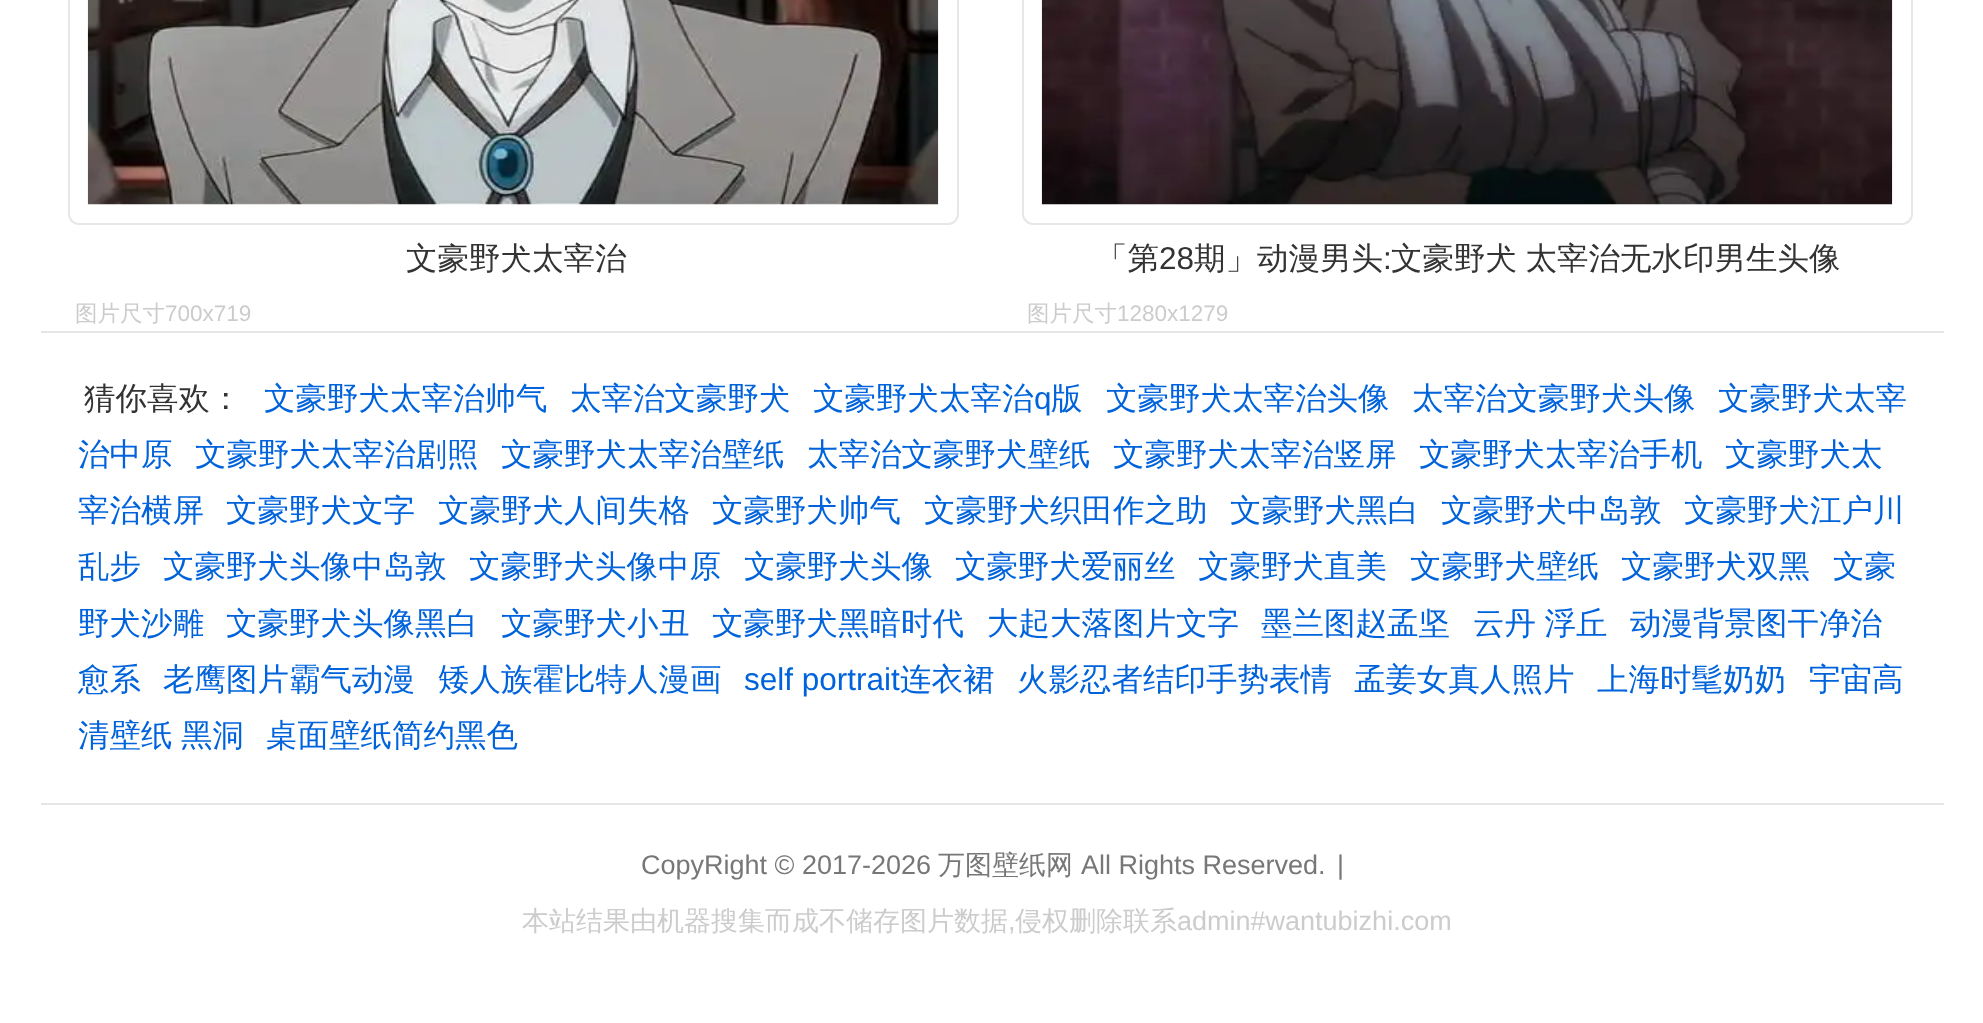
<?xml version="1.0" encoding="UTF-8"?>
<svg xmlns="http://www.w3.org/2000/svg" xmlns:xlink="http://www.w3.org/1999/xlink" width="1983" height="1023">
  <rect width="100%" height="100%" fill="#ffffff" />
  <rect x="69" y="-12" width="889" height="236" rx="10" fill="none" stroke="#e7e7e7" stroke-width="2" />
  <image x="87" y="0" width="852" height="205" xlink:href="image1.png" />
  <rect x="1023" y="-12" width="889" height="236" rx="10" fill="none" stroke="#e7e7e7" stroke-width="2" />
  <image x="1041" y="0" width="852" height="205" xlink:href="image2.png" />
  <rect x="41" y="331" width="1903" height="2" fill="#e5e5e5" />
  <rect x="41" y="803" width="1903" height="2" fill="#e5e5e5" />
  <text x="406" y="269" style="font-family: WenQuanYi Zen Hei; font-size: 31.5px; font-weight: 500; fill: #333333">文豪野犬太宰治</text>
  <text x="75" y="321" style="font-family: WenQuanYi Zen Hei; font-size: 22.5px; font-weight: 500; fill: #cccccc">图片尺寸</text>
  <text x="165" y="321" style="font-family: Liberation Sans; font-size: 22.5px; fill: #cccccc">700x719</text>
  <text x="1096" y="269" style="font-family: WenQuanYi Zen Hei; font-size: 31.5px; font-weight: 500; fill: #333333">「第</text>
  <text x="1159" y="269" style="font-family: Liberation Sans; font-size: 31.5px; fill: #333333">28</text>
  <text x="1194" y="269" style="font-family: WenQuanYi Zen Hei; font-size: 31.5px; font-weight: 500; fill: #333333">期」动漫男头</text>
  <text x="1383" y="269" style="font-family: Liberation Sans; font-size: 31.5px; fill: #333333">:</text>
  <text x="1391" y="269" word-spacing="-1" style="font-family: WenQuanYi Zen Hei; font-size: 31.5px; font-weight: 500; fill: #333333">文豪野犬 太宰治无水印男生头像</text>
  <text x="1027" y="321" style="font-family: WenQuanYi Zen Hei; font-size: 22.5px; font-weight: 500; fill: #cccccc">图片尺寸</text>
  <text x="1117" y="321" style="font-family: Liberation Sans; font-size: 22.5px; fill: #cccccc">1280x1279</text>
  <text x="84" y="409" style="font-family: WenQuanYi Zen Hei; font-size: 31.5px; font-weight: 500; fill: #333333">猜你喜欢：</text>
  <text x="264" y="409" style="font-family: WenQuanYi Zen Hei; font-size: 31.5px; font-weight: 500; fill: #0063dc">文豪野犬太宰治帅气</text>
  <text x="570" y="409" style="font-family: WenQuanYi Zen Hei; font-size: 31.5px; font-weight: 500; fill: #0063dc">太宰治文豪野犬</text>
  <text x="813" y="409" style="font-family: WenQuanYi Zen Hei; font-size: 31.5px; font-weight: 500; fill: #0063dc">文豪野犬太宰治</text>
  <text x="1034" y="409" style="font-family: Liberation Sans; font-size: 31.5px; fill: #0063dc">q</text>
  <text x="1051" y="409" style="font-family: WenQuanYi Zen Hei; font-size: 31.5px; font-weight: 500; fill: #0063dc">版</text>
  <text x="1106" y="409" style="font-family: WenQuanYi Zen Hei; font-size: 31.5px; font-weight: 500; fill: #0063dc">文豪野犬太宰治头像</text>
  <text x="1412" y="409" style="font-family: WenQuanYi Zen Hei; font-size: 31.5px; font-weight: 500; fill: #0063dc">太宰治文豪野犬头像</text>
  <text x="1718" y="409" style="font-family: WenQuanYi Zen Hei; font-size: 31.5px; font-weight: 500; fill: #0063dc">文豪野犬太宰</text>
  <text x="78" y="465" style="font-family: WenQuanYi Zen Hei; font-size: 31.5px; font-weight: 500; fill: #0063dc">治中原</text>
  <text x="195" y="465" style="font-family: WenQuanYi Zen Hei; font-size: 31.5px; font-weight: 500; fill: #0063dc">文豪野犬太宰治剧照</text>
  <text x="501" y="465" style="font-family: WenQuanYi Zen Hei; font-size: 31.5px; font-weight: 500; fill: #0063dc">文豪野犬太宰治壁纸</text>
  <text x="807" y="465" style="font-family: WenQuanYi Zen Hei; font-size: 31.5px; font-weight: 500; fill: #0063dc">太宰治文豪野犬壁纸</text>
  <text x="1113" y="465" style="font-family: WenQuanYi Zen Hei; font-size: 31.5px; font-weight: 500; fill: #0063dc">文豪野犬太宰治竖屏</text>
  <text x="1419" y="465" style="font-family: WenQuanYi Zen Hei; font-size: 31.5px; font-weight: 500; fill: #0063dc">文豪野犬太宰治手机</text>
  <text x="1725" y="465" style="font-family: WenQuanYi Zen Hei; font-size: 31.5px; font-weight: 500; fill: #0063dc">文豪野犬太</text>
  <text x="78" y="521" style="font-family: WenQuanYi Zen Hei; font-size: 31.5px; font-weight: 500; fill: #0063dc">宰治横屏</text>
  <text x="226" y="521" style="font-family: WenQuanYi Zen Hei; font-size: 31.5px; font-weight: 500; fill: #0063dc">文豪野犬文字</text>
  <text x="438" y="521" style="font-family: WenQuanYi Zen Hei; font-size: 31.5px; font-weight: 500; fill: #0063dc">文豪野犬人间失格</text>
  <text x="712" y="521" style="font-family: WenQuanYi Zen Hei; font-size: 31.5px; font-weight: 500; fill: #0063dc">文豪野犬帅气</text>
  <text x="924" y="521" style="font-family: WenQuanYi Zen Hei; font-size: 31.5px; font-weight: 500; fill: #0063dc">文豪野犬织田作之助</text>
  <text x="1230" y="521" style="font-family: WenQuanYi Zen Hei; font-size: 31.5px; font-weight: 500; fill: #0063dc">文豪野犬黑白</text>
  <text x="1441" y="521" style="font-family: WenQuanYi Zen Hei; font-size: 31.5px; font-weight: 500; fill: #0063dc">文豪野犬中岛敦</text>
  <text x="1684" y="521" style="font-family: WenQuanYi Zen Hei; font-size: 31.5px; font-weight: 500; fill: #0063dc">文豪野犬江户川</text>
  <text x="78" y="577" style="font-family: WenQuanYi Zen Hei; font-size: 31.5px; font-weight: 500; fill: #0063dc">乱步</text>
  <text x="163" y="577" style="font-family: WenQuanYi Zen Hei; font-size: 31.5px; font-weight: 500; fill: #0063dc">文豪野犬头像中岛敦</text>
  <text x="469" y="577" style="font-family: WenQuanYi Zen Hei; font-size: 31.5px; font-weight: 500; fill: #0063dc">文豪野犬头像中原</text>
  <text x="744" y="577" style="font-family: WenQuanYi Zen Hei; font-size: 31.5px; font-weight: 500; fill: #0063dc">文豪野犬头像</text>
  <text x="955" y="577" style="font-family: WenQuanYi Zen Hei; font-size: 31.5px; font-weight: 500; fill: #0063dc">文豪野犬爱丽丝</text>
  <text x="1198" y="577" style="font-family: WenQuanYi Zen Hei; font-size: 31.5px; font-weight: 500; fill: #0063dc">文豪野犬直美</text>
  <text x="1410" y="577" style="font-family: WenQuanYi Zen Hei; font-size: 31.5px; font-weight: 500; fill: #0063dc">文豪野犬壁纸</text>
  <text x="1621" y="577" style="font-family: WenQuanYi Zen Hei; font-size: 31.5px; font-weight: 500; fill: #0063dc">文豪野犬双黑</text>
  <text x="1833" y="577" style="font-family: WenQuanYi Zen Hei; font-size: 31.5px; font-weight: 500; fill: #0063dc">文豪</text>
  <text x="78" y="634" style="font-family: WenQuanYi Zen Hei; font-size: 31.5px; font-weight: 500; fill: #0063dc">野犬沙雕</text>
  <text x="226" y="634" style="font-family: WenQuanYi Zen Hei; font-size: 31.5px; font-weight: 500; fill: #0063dc">文豪野犬头像黑白</text>
  <text x="501" y="634" style="font-family: WenQuanYi Zen Hei; font-size: 31.5px; font-weight: 500; fill: #0063dc">文豪野犬小丑</text>
  <text x="712" y="634" style="font-family: WenQuanYi Zen Hei; font-size: 31.5px; font-weight: 500; fill: #0063dc">文豪野犬黑暗时代</text>
  <text x="987" y="634" style="font-family: WenQuanYi Zen Hei; font-size: 31.5px; font-weight: 500; fill: #0063dc">大起大落图片文字</text>
  <text x="1261" y="634" style="font-family: WenQuanYi Zen Hei; font-size: 31.5px; font-weight: 500; fill: #0063dc">墨兰图赵孟坚</text>
  <text x="1473" y="634" word-spacing="-1" style="font-family: WenQuanYi Zen Hei; font-size: 31.5px; font-weight: 500; fill: #0063dc">云丹 浮丘</text>
  <text x="1630" y="634" style="font-family: WenQuanYi Zen Hei; font-size: 31.5px; font-weight: 500; fill: #0063dc">动漫背景图干净治</text>
  <text x="78" y="690" style="font-family: WenQuanYi Zen Hei; font-size: 31.5px; font-weight: 500; fill: #0063dc">愈系</text>
  <text x="163" y="690" style="font-family: WenQuanYi Zen Hei; font-size: 31.5px; font-weight: 500; fill: #0063dc">老鹰图片霸气动漫</text>
  <text x="438" y="690" style="font-family: WenQuanYi Zen Hei; font-size: 31.5px; font-weight: 500; fill: #0063dc">矮人族霍比特人漫画</text>
  <text x="744" y="690" style="font-family: Liberation Sans; font-size: 31.5px; fill: #0063dc">self portrait</text>
  <text x="900" y="690" style="font-family: WenQuanYi Zen Hei; font-size: 31.5px; font-weight: 500; fill: #0063dc">连衣裙</text>
  <text x="1017" y="690" style="font-family: WenQuanYi Zen Hei; font-size: 31.5px; font-weight: 500; fill: #0063dc">火影忍者结印手势表情</text>
  <text x="1354" y="690" style="font-family: WenQuanYi Zen Hei; font-size: 31.5px; font-weight: 500; fill: #0063dc">孟姜女真人照片</text>
  <text x="1597" y="690" style="font-family: WenQuanYi Zen Hei; font-size: 31.5px; font-weight: 500; fill: #0063dc">上海时髦奶奶</text>
  <text x="1809" y="690" style="font-family: WenQuanYi Zen Hei; font-size: 31.5px; font-weight: 500; fill: #0063dc">宇宙高</text>
  <text x="78" y="746" word-spacing="-1" style="font-family: WenQuanYi Zen Hei; font-size: 31.5px; font-weight: 500; fill: #0063dc">清壁纸 黑洞</text>
  <text x="266" y="746" style="font-family: WenQuanYi Zen Hei; font-size: 31.5px; font-weight: 500; fill: #0063dc">桌面壁纸简约黑色</text>
  <text x="641" y="874" style="font-family: Liberation Sans; font-size: 27px; fill: #777777">CopyRight © 2017-2026</text>
  <text x="938" y="874" style="font-family: WenQuanYi Zen Hei; font-size: 27px; font-weight: 500; fill: #777777">万图壁纸网</text>
  <text x="1081" y="874" style="font-family: Liberation Sans; font-size: 27px; fill: #777777">All Rights Reserved.</text>
  <text x="1337" y="874" style="font-family: Liberation Sans; font-size: 27px; fill: #777777">|</text>
  <text x="522" y="930" style="font-family: WenQuanYi Zen Hei; font-size: 27px; font-weight: 500; fill: #cccccc">本站结果由机器搜集而成不储存图片数据</text>
  <text x="1008" y="930" style="font-family: Liberation Sans; font-size: 27px; fill: #cccccc">,</text>
  <text x="1015" y="930" style="font-family: WenQuanYi Zen Hei; font-size: 27px; font-weight: 500; fill: #cccccc">侵权删除联系</text>
  <text x="1177" y="930" style="font-family: Liberation Sans; font-size: 27px; fill: #cccccc">admin#wantubizhi.com</text>
</svg>
